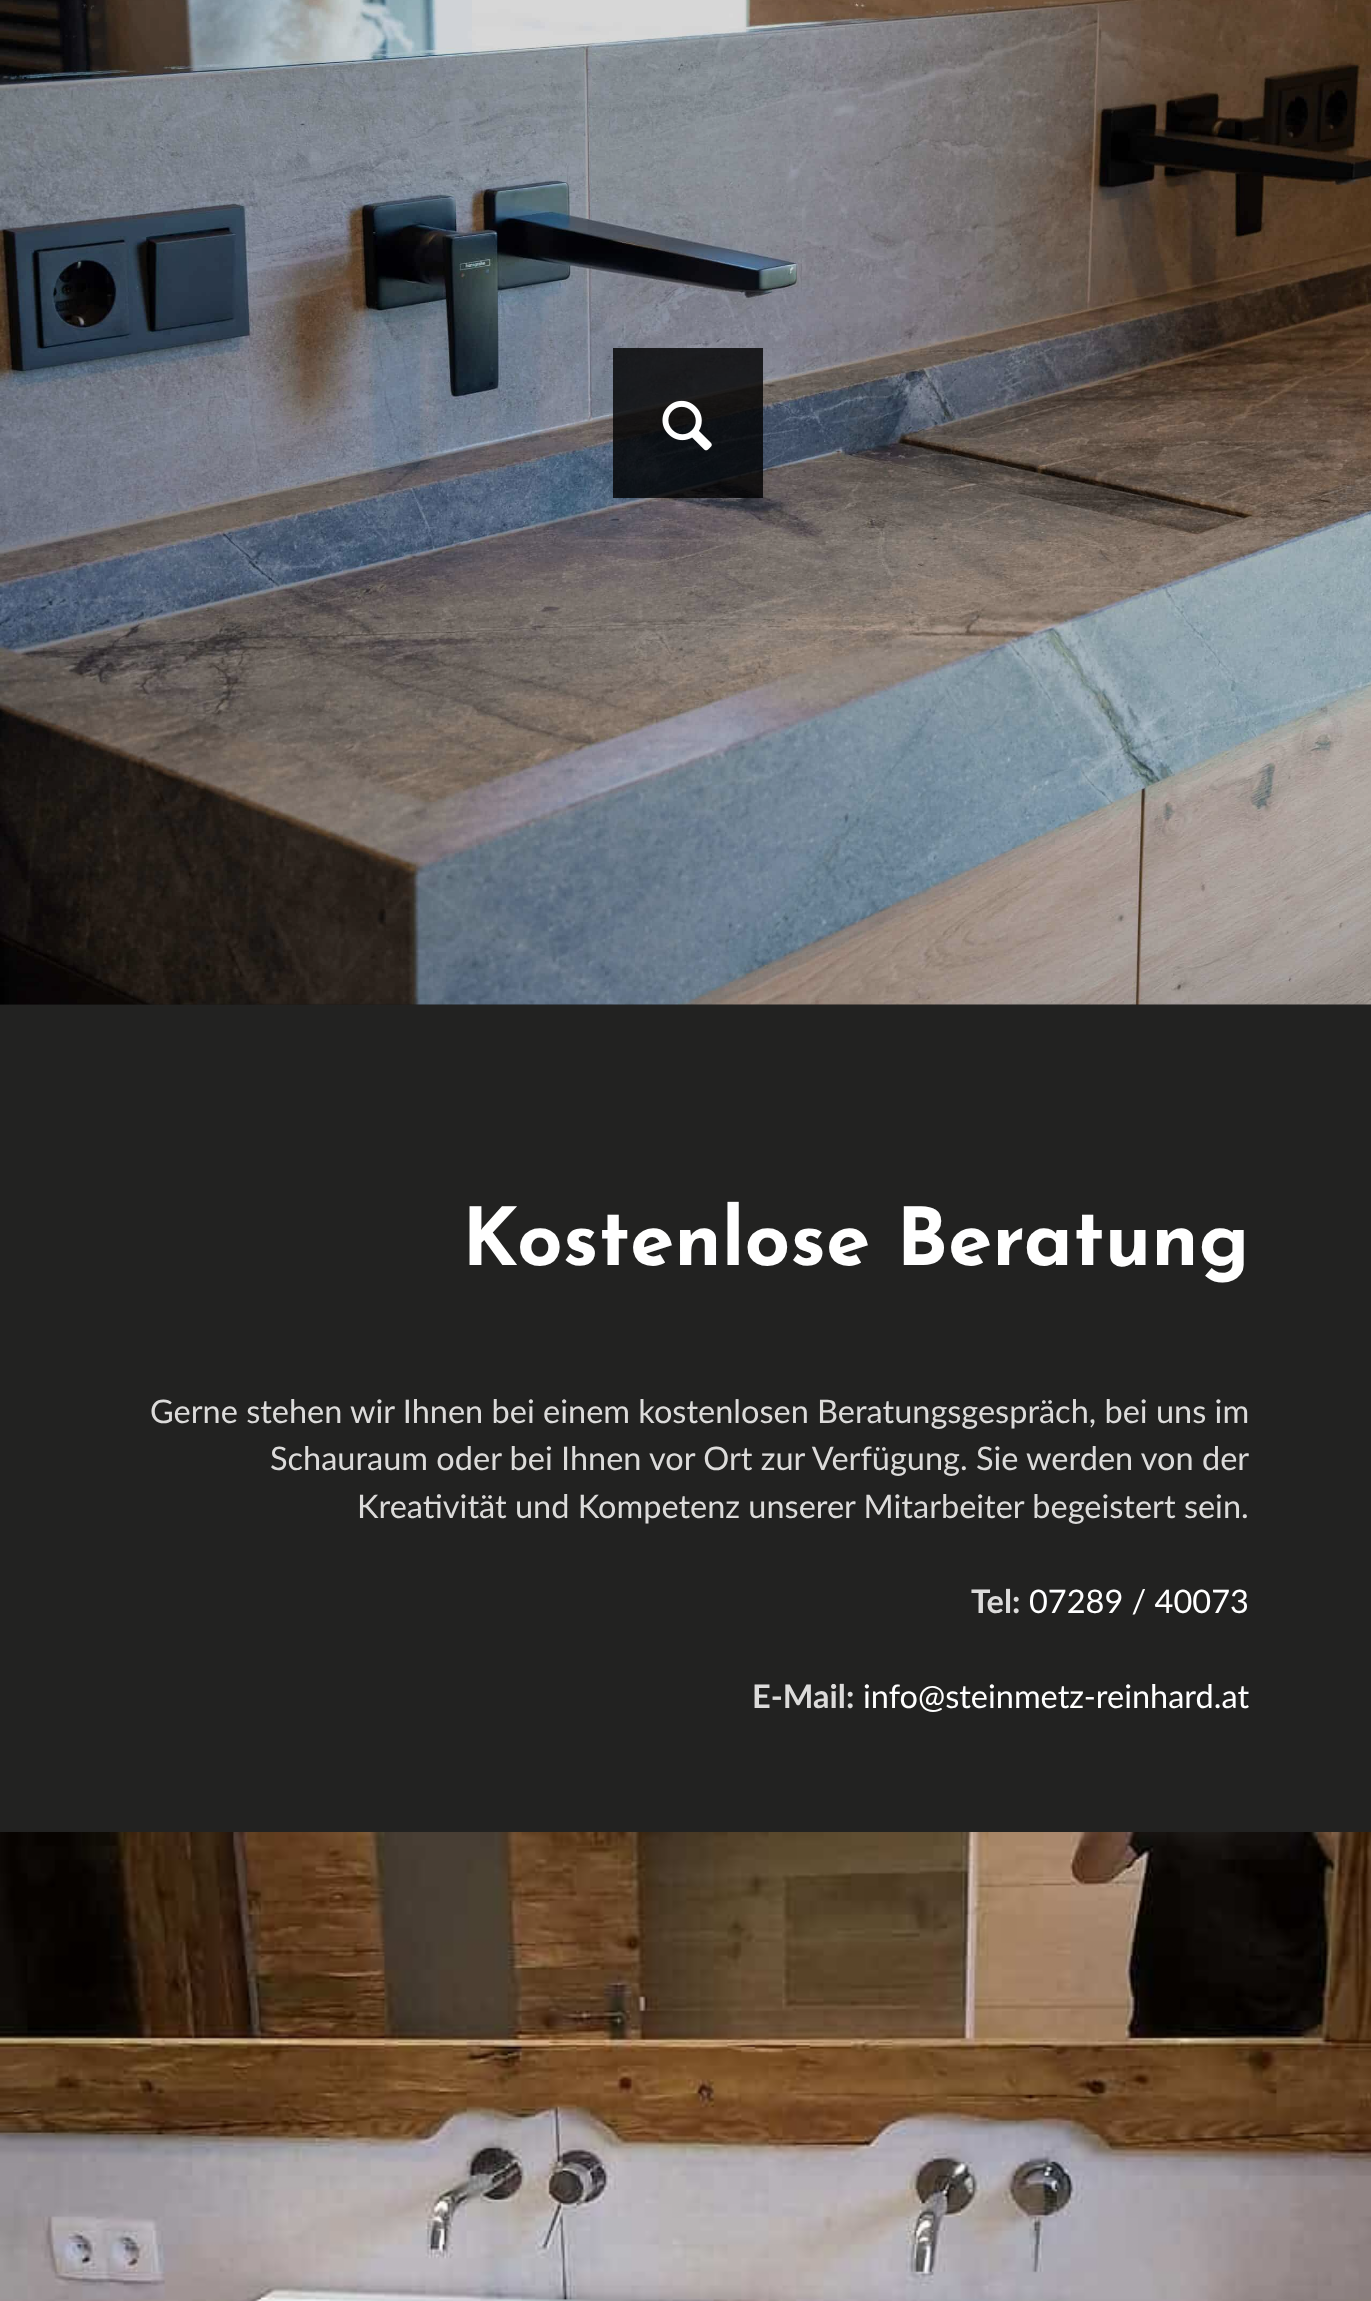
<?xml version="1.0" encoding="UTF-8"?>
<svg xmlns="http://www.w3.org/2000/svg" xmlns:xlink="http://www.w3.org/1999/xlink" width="1371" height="2301">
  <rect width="100%" height="100%" fill="#222221" />
  <rect y="1004" width="1371" height="1" fill="#1d1d1c" />
  <image x="0" y="0" width="1371" height="1005" xlink:href="image1.png" />
  <rect x="613" y="348" width="150" height="150" fill="#000000" fill-opacity="0.8" />
  <image x="662" y="400" width="50" height="51" xlink:href="image2.png" />
  <image x="0" y="1832" width="1371" height="469" xlink:href="image3.png" />
  <text x="462" y="1265" style="font-family: Josefin Sans; font-size: 80px; font-weight: bold; fill: #ffffff">Kostenlose Beratung</text>
  <text x="150" y="1423" style="font-family: Lato; font-size: 32.5px; fill: #dcdbda">Gerne stehen wir Ihnen bei einem kostenlosen Beratungsgespräch, bei uns im</text>
  <text x="270" y="1470" style="font-family: Lato; font-size: 32.5px; fill: #dcdbda">Schauraum oder bei Ihnen vor Ort zur Verfügung. Sie werden von der</text>
  <text x="357" y="1518" style="font-family: Lato; font-size: 32.5px; fill: #dcdbda">Kreativität und Kompetenz unserer Mitarbeiter begeistert sein.</text>
  <text x="971" y="1613" style="font-family: Lato; font-size: 32.5px; font-weight: bold; fill: #dcdbda">Tel:</text>
  <text x="1029" y="1613" style="font-family: Lato; font-size: 32.5px; fill: #ffffff">07289 / 40073</text>
  <text x="752" y="1708" style="font-family: Lato; font-size: 32.5px; font-weight: bold; fill: #dcdbda">E-Mail:</text>
  <text x="863" y="1708" style="font-family: Lato; font-size: 32.5px; fill: #ffffff">info@steinmetz-reinhard.at</text>
</svg>
